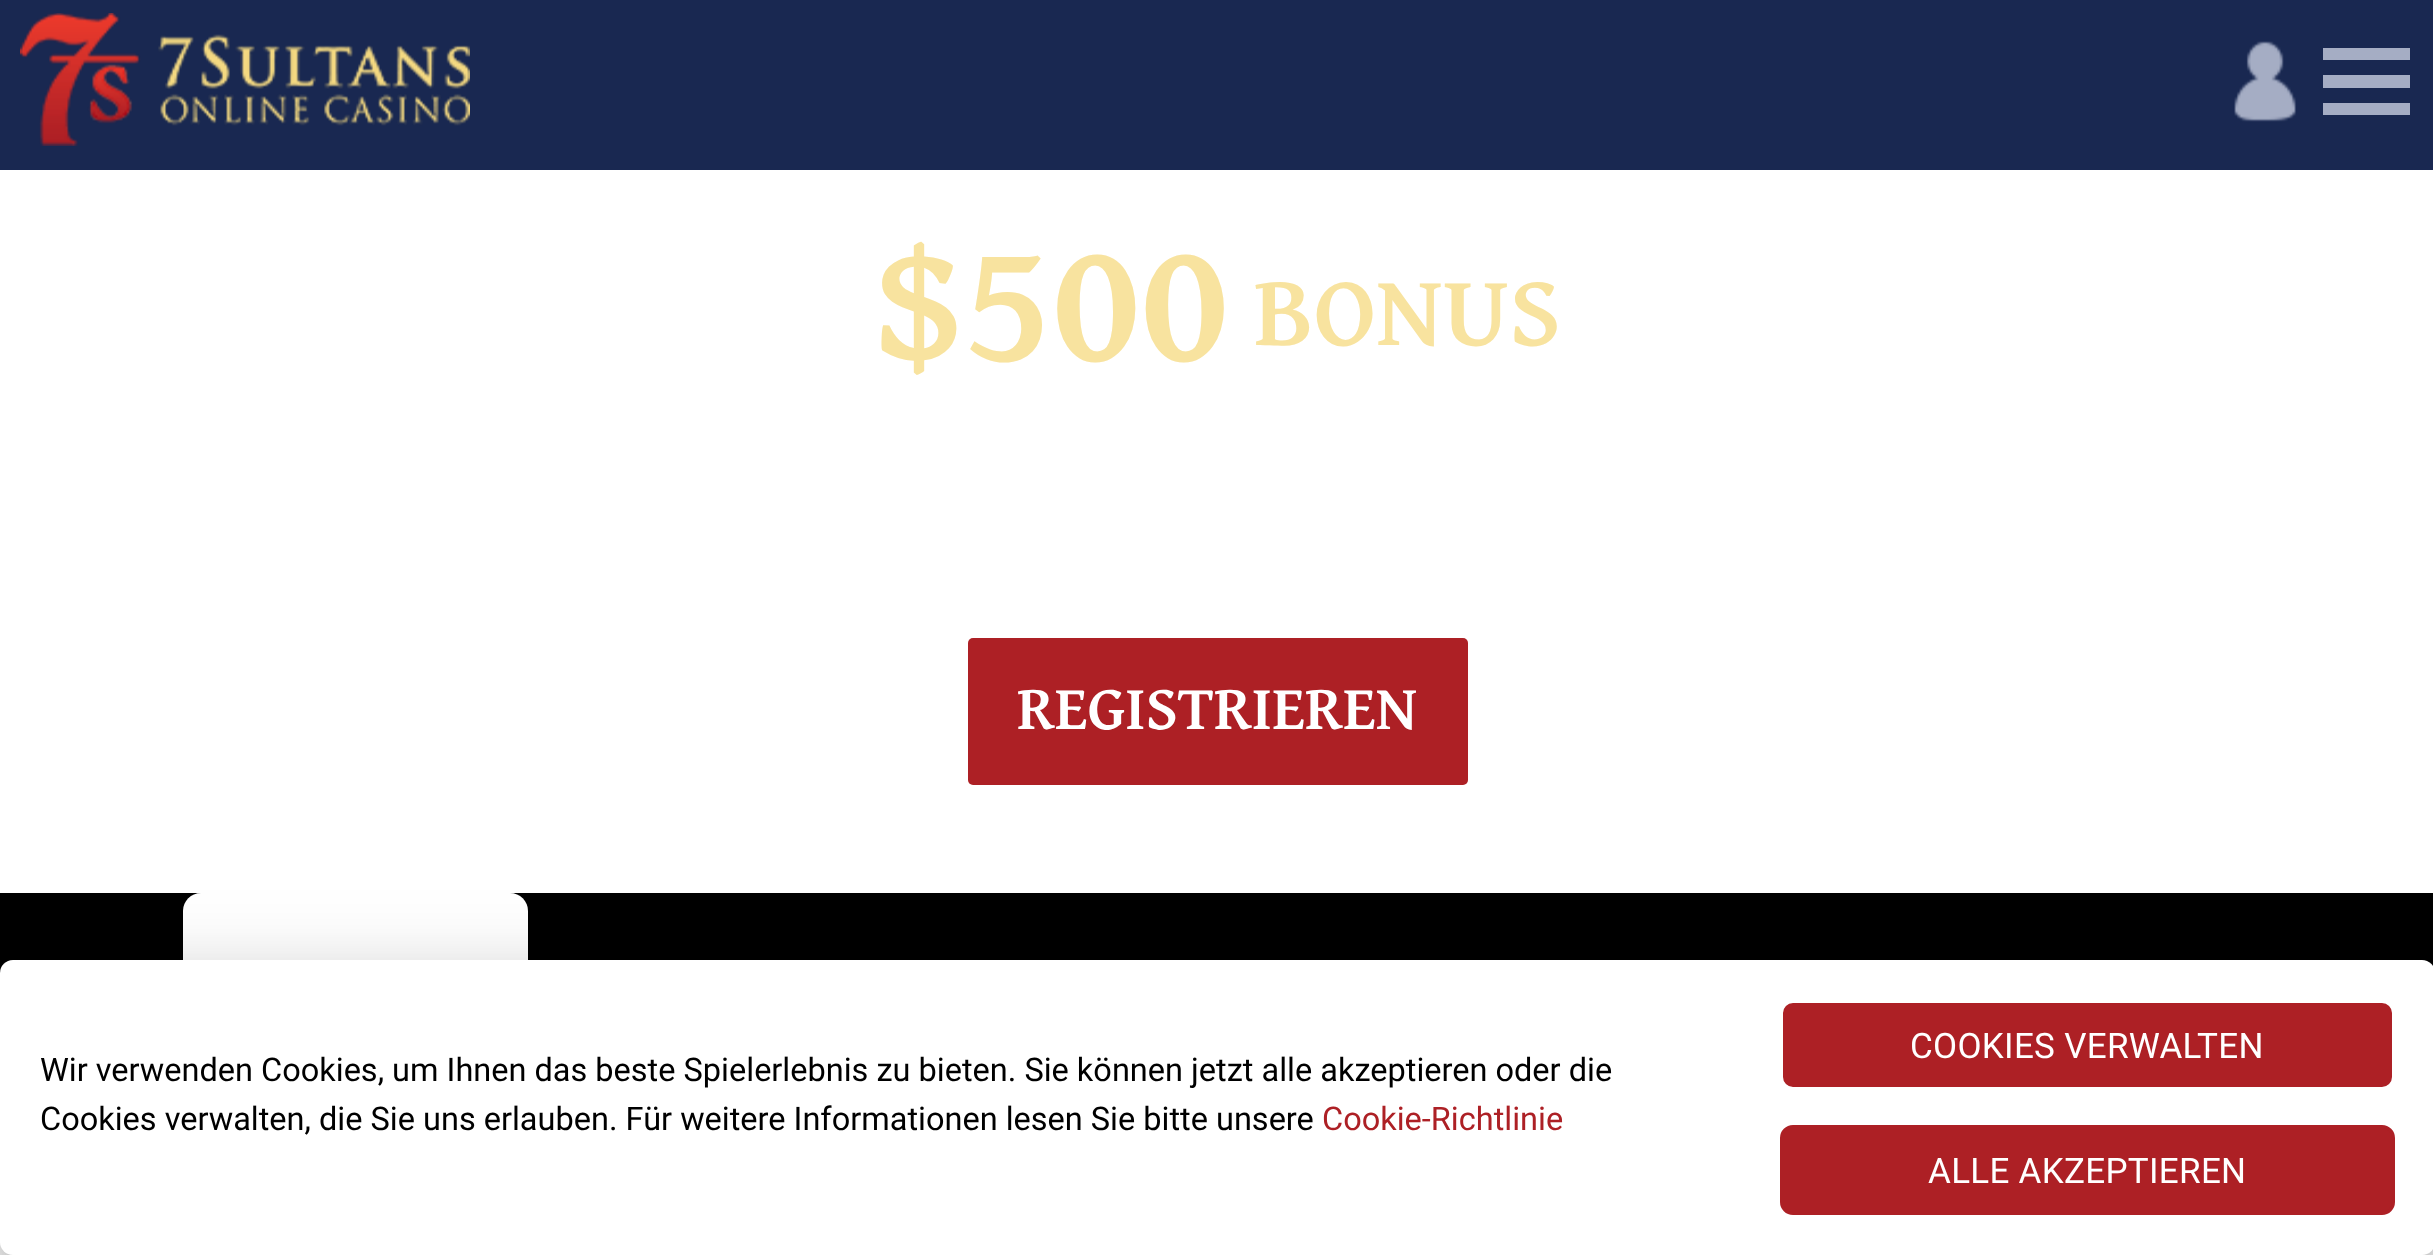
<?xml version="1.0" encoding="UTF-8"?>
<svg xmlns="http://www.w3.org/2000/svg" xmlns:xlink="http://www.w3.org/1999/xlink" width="2433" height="1255">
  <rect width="100%" height="100%" fill="#ffffff" />
  <rect width="2433" height="170" fill="#192851" />
  <image x="20" y="13" width="450" height="133" xlink:href="image1.png" />
  <image x="2234" y="41" width="62" height="81" xlink:href="image2.png" />
  <rect x="2323" y="48" width="87" height="12" fill="#a5adc4" />
  <rect x="2323" y="75" width="87" height="13" fill="#a5adc4" />
  <rect x="2323" y="103" width="87" height="12" fill="#a5adc4" />
  <rect x="968" y="638" width="500" height="147" rx="5" fill="#ad2025" />
  <rect y="893" width="2433" height="80" fill="#000000" />
  <path d="M 201 893 h 309 c 10 0 18 8 18 18 v 267 h -345 v -267 c 0 -10 8 -18 18 -18 z" fill="#ffffff" />
  <rect x="13" y="993" width="2410" height="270" fill="#000000" fill-opacity="0.2" filter="blur(12.5px)" />
  <rect x="-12" y="963" width="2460" height="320" rx="25" fill="#000000" fill-opacity="0.12" filter="blur(37.5px)" />
  <rect x="-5" y="995" width="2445" height="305" rx="18" fill="#000000" fill-opacity="0.14" filter="blur(30px)" />
  <rect y="960" width="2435" height="295" rx="13" fill="#ffffff" />
  <rect x="1781.5" y="1001.5" width="612" height="87" rx="11.5" fill="#ad2025" stroke="#ffffff" stroke-width="3" />
  <rect x="1781.5" y="1126.5" width="612" height="87" rx="11.5" fill="#ad2025" stroke="#ad2025" stroke-width="3" />
  <text x="875" y="360" style="font-family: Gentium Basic; font-size: 175px; font-weight: bold; fill: #f8e39f">$500</text>
  <text x="1254" y="345" style="font-family: Gentium Basic; font-size: 100px; font-weight: bold; fill: #f8e39f">BONUS</text>
  <text x="1017" y="729" style="font-family: Gentium Basic; font-size: 62.5px; font-weight: bold; fill: #ffffff">REGISTRIEREN</text>
  <text x="40" y="1081" style="font-family: Roboto; font-size: 32.5px; fill: #000000">Wir verwenden Cookies, um Ihnen das beste Spielerlebnis zu bieten. Sie können jetzt alle akzeptieren oder die</text>
  <text x="40" y="1130" style="font-family: Roboto; font-size: 32.5px; fill: #000000">Cookies verwalten, die Sie uns erlauben. Für weitere Informationen lesen Sie bitte unsere</text>
  <text x="1322" y="1130" style="font-family: Roboto; font-size: 32.5px; fill: #ad2025">Cookie-Richtlinie</text>
  <text x="1910" y="1058" style="font-family: Roboto; font-size: 35px; letter-spacing: 0.3px; fill: #ffffff">COOKIES VERWALTEN</text>
  <text x="1928" y="1183" style="font-family: Roboto; font-size: 35px; letter-spacing: 0.3px; fill: #ffffff">ALLE AKZEPTIEREN</text>
</svg>
